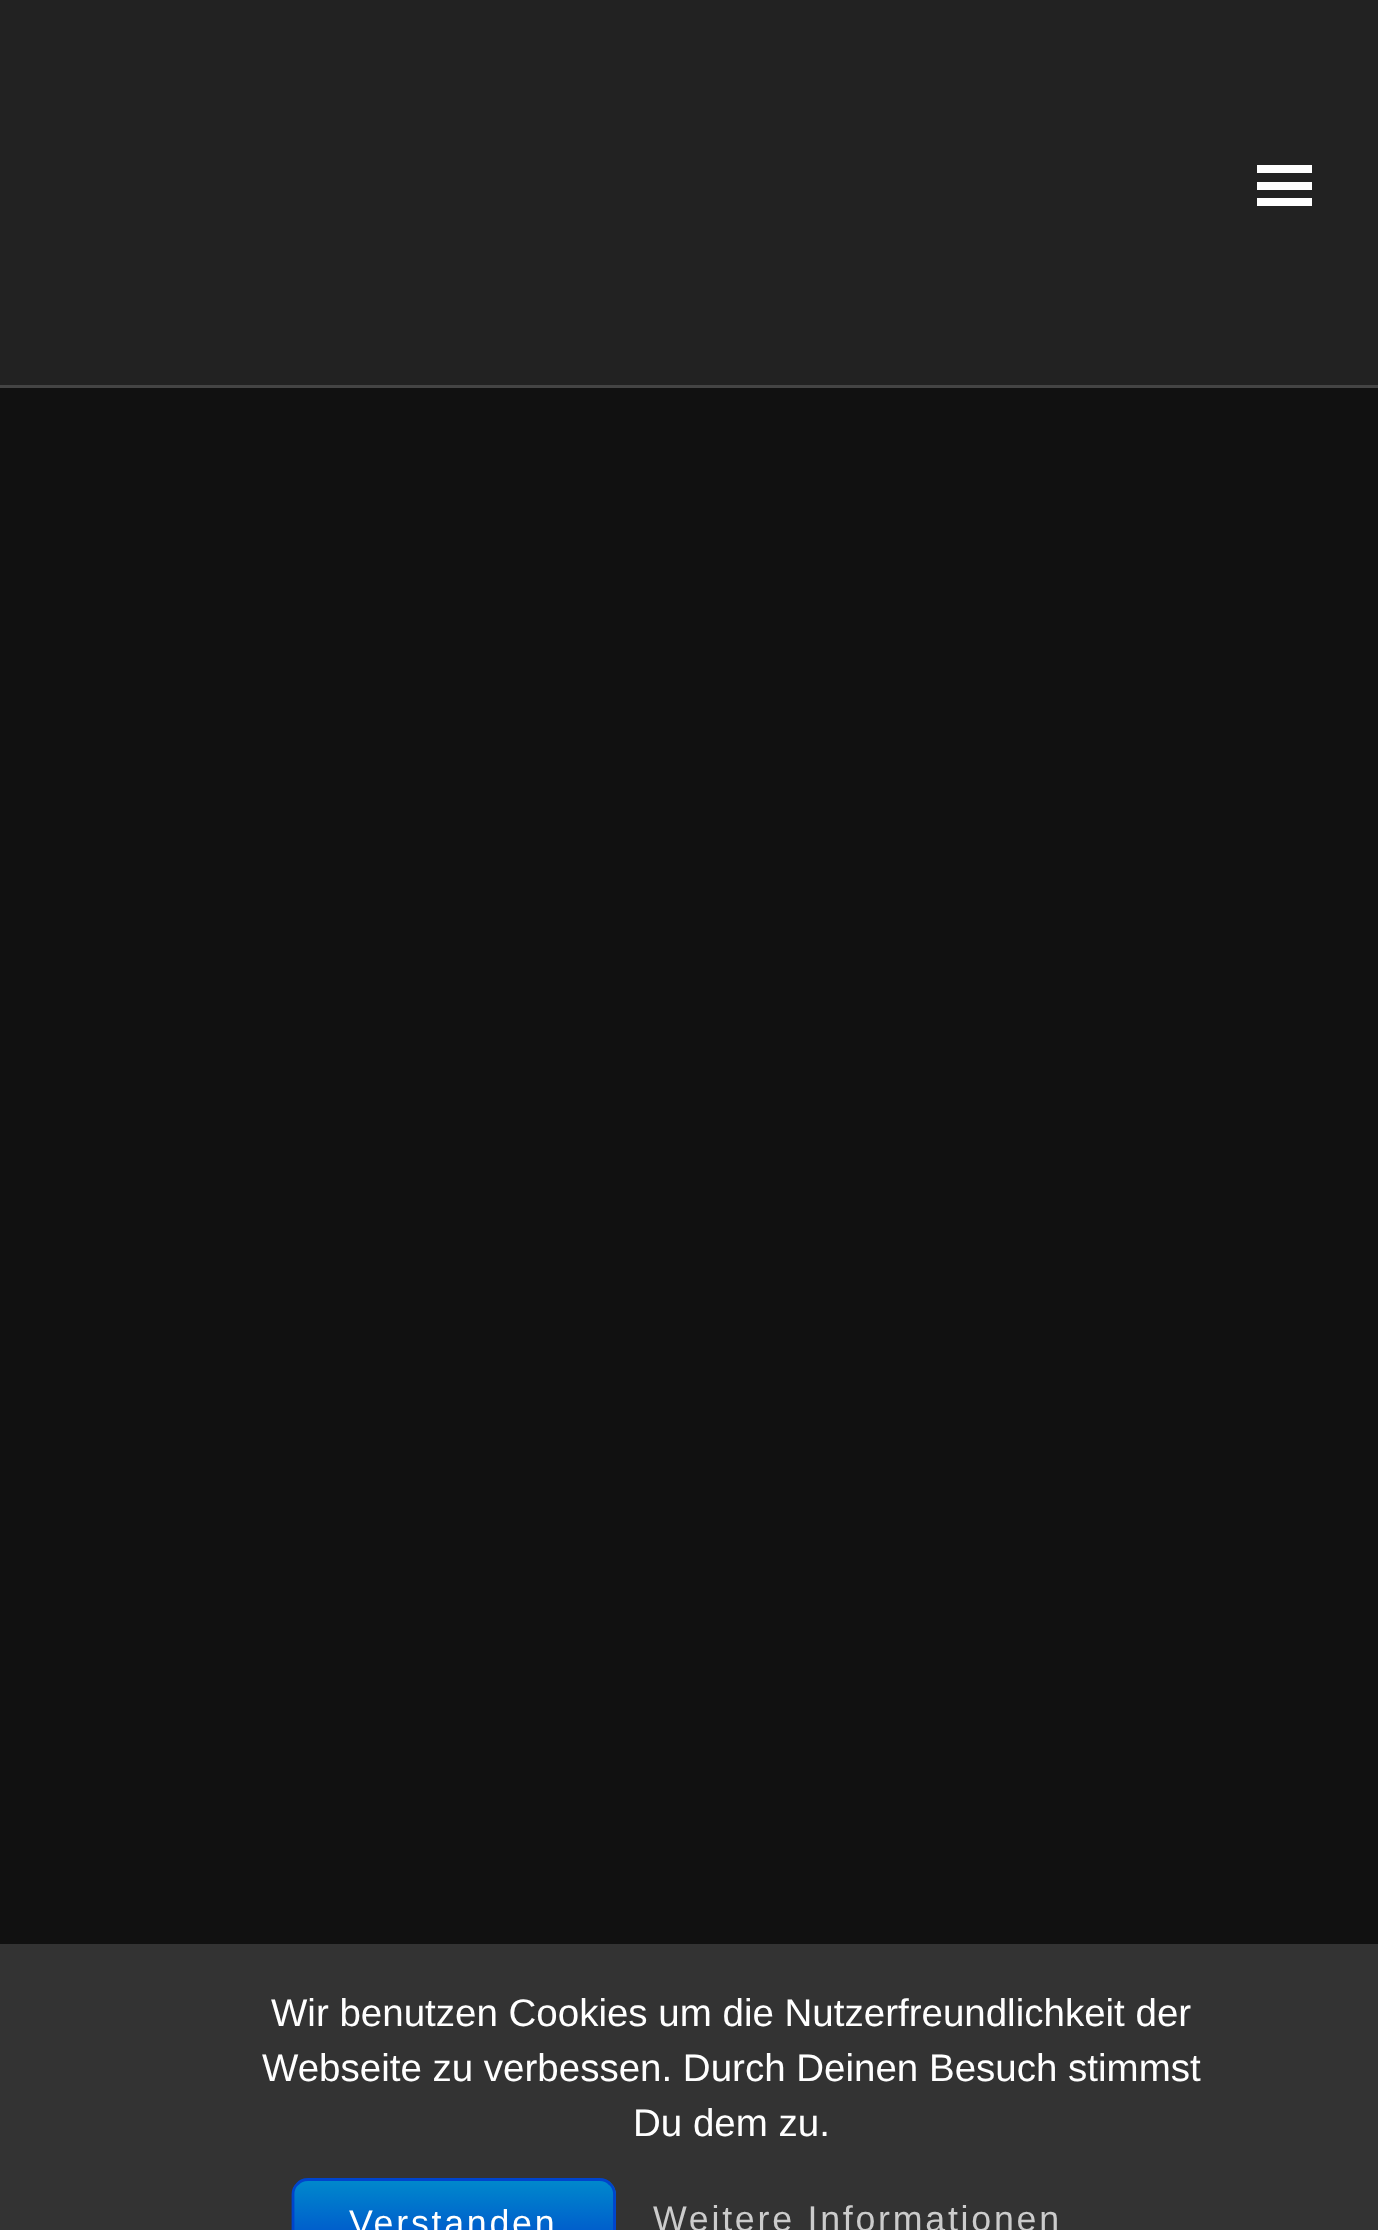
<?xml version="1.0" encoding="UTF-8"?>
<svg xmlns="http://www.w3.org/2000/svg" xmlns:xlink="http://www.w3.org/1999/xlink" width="1378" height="2230">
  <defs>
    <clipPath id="clip1"><rect x="292" y="2178" width="324" height="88" rx="17" /></clipPath>
    <linearGradient id="g1" gradientUnits="userSpaceOnUse" x1="454" y1="2181" x2="454" y2="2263"><stop offset="0" stop-color="#0088cc" /><stop offset="1" stop-color="#0044cc" /></linearGradient>
  </defs>
  <rect width="100%" height="100%" fill="#111111" />
  <rect width="1378" height="385" fill="#222222" />
  <rect y="385" width="1378" height="3" fill="#444444" />
  <rect x="1257" y="182" width="55" height="8" fill="#ffffff" />
  <rect x="1257" y="165" width="55" height="8" fill="#ffffff" />
  <rect x="1257" y="198" width="55" height="8" fill="#ffffff" />
  <rect y="1944" width="1378" height="286" fill="#333333" />
  <g clip-path="url(#clip1)">
    <rect x="292" y="2181" width="324" height="49" fill="url(#g1)" />
  </g>
  <path d="M 297.5 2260 c -3 -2.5 -4.5 -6.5 -4.5 -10.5 v -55 c 0 -4 1.5 -8 4.5 -10.5 c 2.5 -3 6.5 -4.5 10.5 -4.5 h 291.5 c 4 0 8 1.5 10.5 4.5 c 3 2.5 4.5 6.5 4.5 10.5 v 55 c 0 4 -1.5 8 -4.5 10.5" fill="none" stroke="#0044cc" stroke-width="2.8" />
  <text x="271" y="2026" style="font-family: Liberation Sans; font-size: 38.5px; fill: #ffffff">Wir benutzen Cookies um die Nutzerfreundlichkeit der</text>
  <text x="262" y="2081" style="font-family: Liberation Sans; font-size: 38.5px; fill: #ffffff">Webseite zu verbessen. Durch Deinen Besuch stimmst</text>
  <text x="633" y="2136" style="font-family: Liberation Sans; font-size: 38.5px; fill: #ffffff">Du dem zu.</text>
  <text x="349" y="2235" style="font-family: Liberation Sans; font-size: 35.75px; letter-spacing: 2.75px; fill: #ffffff">Verstanden</text>
  <text x="653" y="2231" style="font-family: Liberation Sans; font-size: 35.75px; letter-spacing: 2.75px; fill: #cccccc">Weitere Informationen</text>
</svg>
